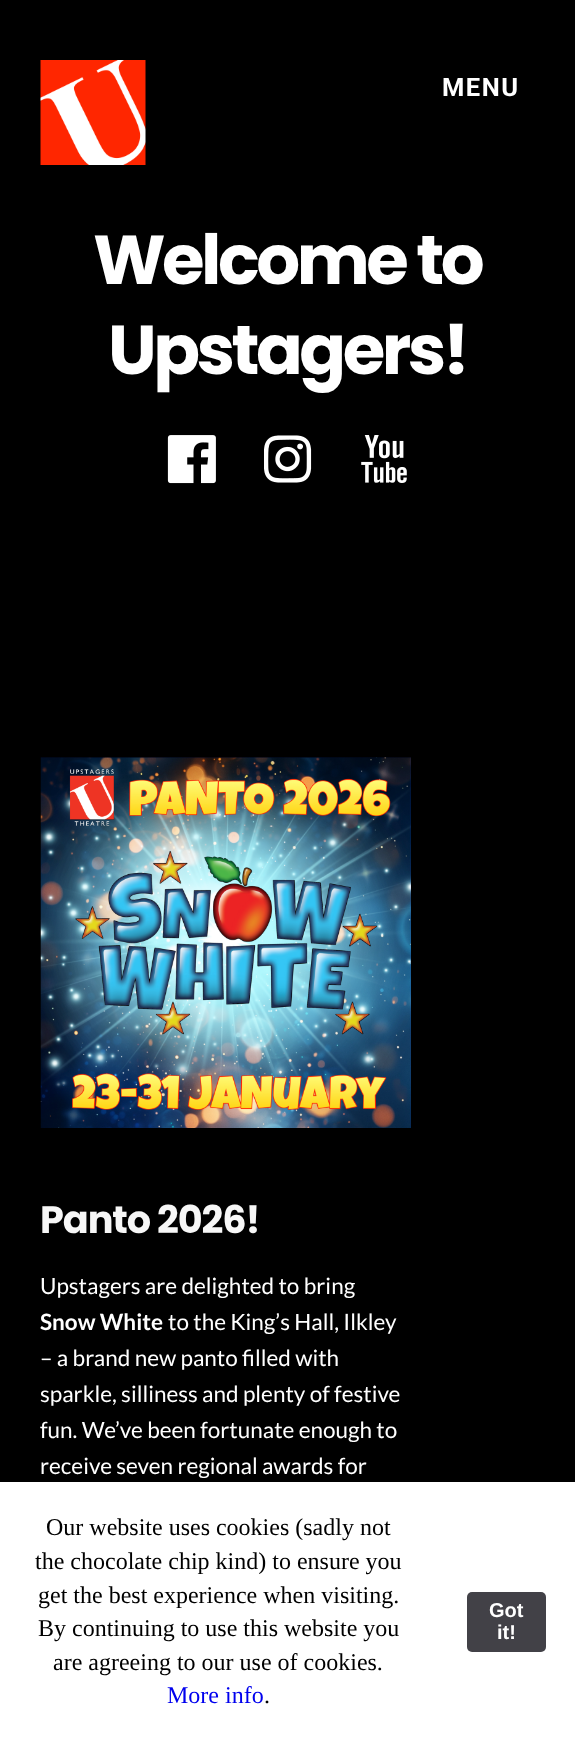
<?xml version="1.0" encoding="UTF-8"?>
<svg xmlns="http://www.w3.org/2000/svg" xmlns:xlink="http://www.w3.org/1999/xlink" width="575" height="1760">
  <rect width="100%" height="100%" fill="#000000" />
  <image x="40" y="60" width="106" height="105" xlink:href="image1.png" />
  <image x="167" y="435" width="49" height="49" xlink:href="image2.png" />
  <image x="264" y="435" width="48" height="48" xlink:href="image3.png" />
  <image x="361" y="435" width="46" height="48" xlink:href="image4.png" />
  <image x="40" y="757" width="371" height="371" xlink:href="image5.png" />
  <rect y="1482" width="575" height="278" fill="#ffffff" />
  <rect x="467" y="1592" width="79" height="60" rx="5" fill="#424147" />
  <text x="442" y="96" style="font-family: Roboto; font-size: 25.5px; font-weight: bold; letter-spacing: 1.5px; fill: #ffffff">MENU</text>
  <text x="93" y="284" style="font-family: Poppins; font-size: 69px; font-weight: bold; letter-spacing: -3.5px; fill: #ffffff">Welcome to</text>
  <text x="108" y="374" style="font-family: Poppins; font-size: 69px; font-weight: bold; letter-spacing: -3.5px; fill: #ffffff">Upstagers!</text>
  <text x="40" y="1233" style="font-family: Poppins; font-size: 38.25px; font-weight: bold; letter-spacing: -1.1px; fill: #f7f7f7">Panto 2026!</text>
  <text x="40" y="1294" style="font-family: Lato; font-size: 22.5px; fill: #ffffff">Upstagers are delighted to bring</text>
  <text x="40" y="1330" style="font-family: Lato; font-size: 22.5px; font-weight: bold; fill: #ffffff">Snow White</text>
  <text x="168" y="1330" style="font-family: Lato; font-size: 22.5px; fill: #ffffff">to the King’s Hall, Ilkley</text>
  <text x="40" y="1366" style="font-family: Lato; font-size: 22.5px; fill: #ffffff">– a brand new panto filled with</text>
  <text x="40" y="1402" style="font-family: Lato; font-size: 22.5px; fill: #ffffff">sparkle, silliness and plenty of festive</text>
  <text x="40" y="1438" style="font-family: Lato; font-size: 22.5px; fill: #ffffff">fun. We’ve been fortunate enough to</text>
  <text x="40" y="1474" style="font-family: Lato; font-size: 22.5px; fill: #ffffff">receive seven regional awards for</text>
  <text x="46" y="1535" style="font-family: Liberation Serif; font-size: 24px; fill: #000000">Our website uses cookies (sadly not</text>
  <text x="35" y="1569" style="font-family: Liberation Serif; font-size: 24px; fill: #000000">the chocolate chip kind) to ensure you</text>
  <text x="38" y="1603" style="font-family: Liberation Serif; font-size: 24px; fill: #000000">get the best experience when visiting.</text>
  <text x="38" y="1636" style="font-family: Liberation Serif; font-size: 24px; fill: #000000">By continuing to use this website you</text>
  <text x="53" y="1670" style="font-family: Liberation Serif; font-size: 24px; fill: #000000">are agreeing to our use of cookies.</text>
  <text x="167" y="1703" style="font-family: Liberation Serif; font-size: 24px; fill: #0000ee">More info</text>
  <text x="264" y="1703" style="font-family: Liberation Serif; font-size: 24px; fill: #000000">.</text>
  <text x="489" y="1617" style="font-family: Liberation Sans; font-size: 20px; font-weight: bold; fill: #ffffff">Got</text>
  <text x="497" y="1639" style="font-family: Liberation Sans; font-size: 20px; font-weight: bold; fill: #ffffff">it!</text>
</svg>
